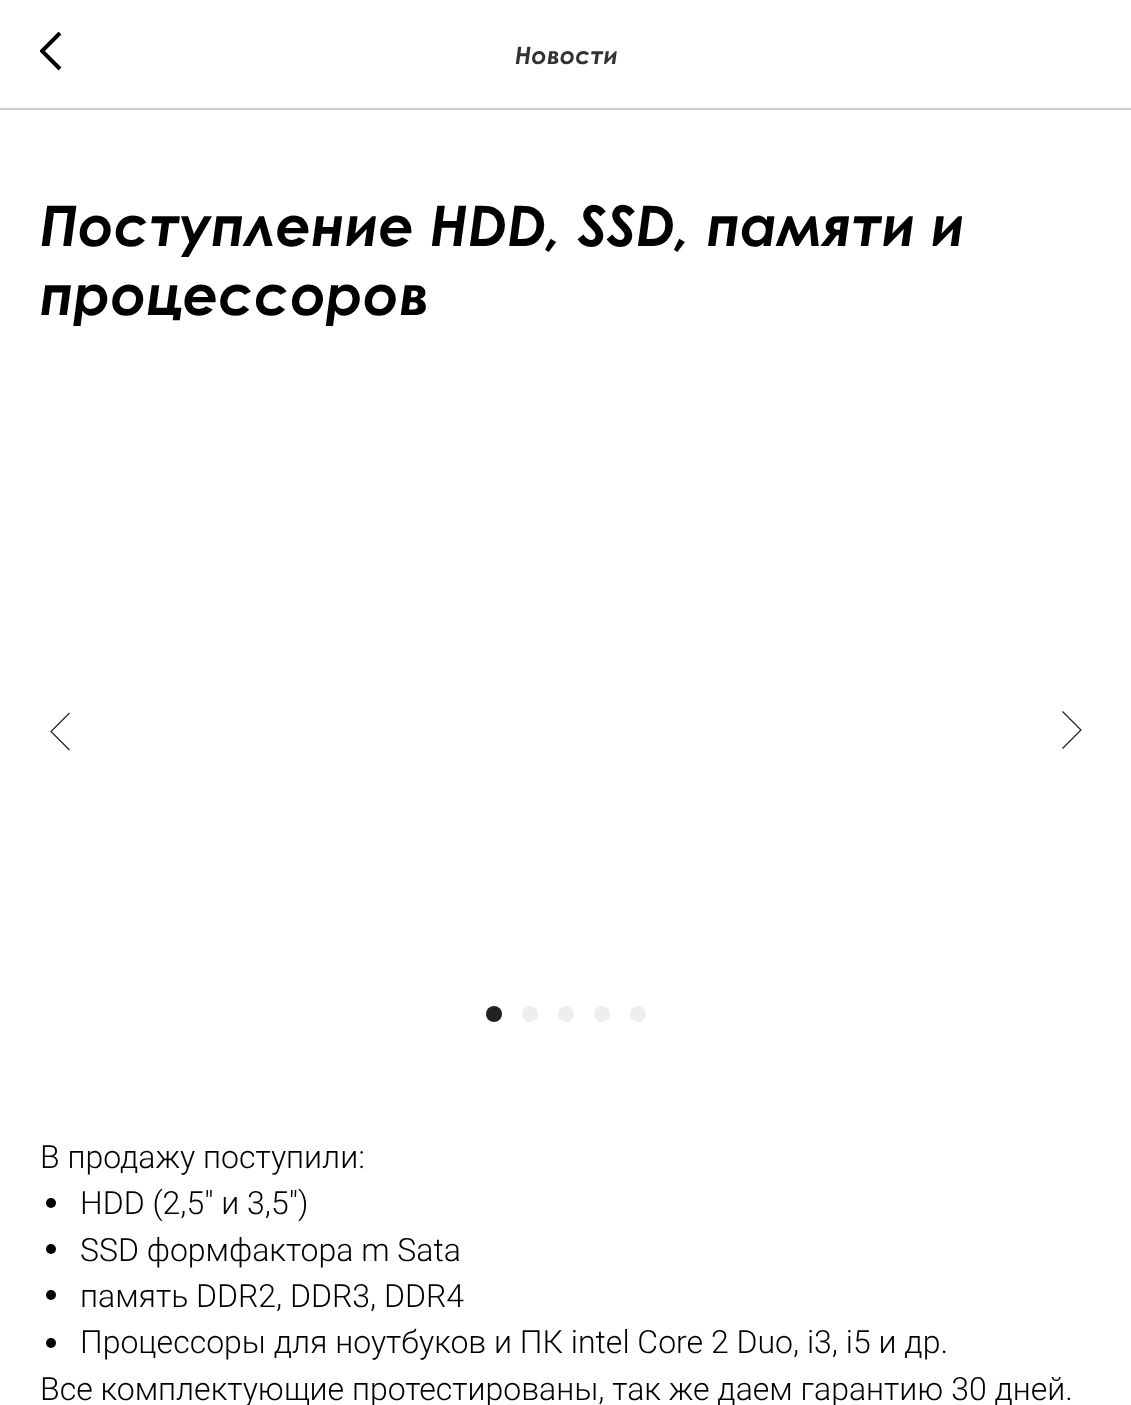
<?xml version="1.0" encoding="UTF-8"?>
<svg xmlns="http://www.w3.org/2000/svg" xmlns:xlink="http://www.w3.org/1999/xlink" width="1131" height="1405">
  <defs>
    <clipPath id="clip1"><rect x="40" y="32" width="22" height="40" /></clipPath>
  </defs>
  <rect width="100%" height="100%" fill="#ffffff" />
  <rect y="108" width="1131" height="2" fill="#cccccc" />
  <g clip-path="url(#clip1)">
    <path d="M 60 69 l -18 -18 l 18 -18" fill="none" stroke="#000000" stroke-width="4" />
  </g>
  <path d="M 69.5 750 l -18.5 -18.5 l 18.5 -18.5" fill="none" stroke="#222222" stroke-width="1.2" />
  <path d="M 1062.5 711.5 l 18.5 18.5 l -18.5 18.5" fill="none" stroke="#222222" stroke-width="1.2" />
  <circle cx="494" cy="1014" r="8" fill="#222222" />
  <circle cx="530" cy="1014" r="8" fill="#eeeeee" />
  <circle cx="566" cy="1014" r="8" fill="#eeeeee" />
  <circle cx="602" cy="1014" r="8" fill="#eeeeee" />
  <circle cx="638" cy="1014" r="8" fill="#eeeeee" />
  <circle cx="51" cy="1203" r="5" fill="#000000" />
  <circle cx="51" cy="1249" r="5" fill="#000000" />
  <circle cx="51" cy="1295" r="5" fill="#000000" />
  <circle cx="51" cy="1343" r="5" fill="#000000" />
  <text x="515" y="64" style="font-family: Century Gothic; font-size: 24px; font-weight: bold; font-style: italic; fill: #333333">Новости</text>
  <text x="40" y="246" style="font-family: Century Gothic; font-size: 56px; font-weight: bold; font-style: italic; fill: #000000">Поступление HDD, SSD, памяти и</text>
  <text x="40" y="315" style="font-family: Century Gothic; font-size: 56px; font-weight: bold; font-style: italic; fill: #000000">процессоров</text>
  <text x="40" y="1168" style="font-family: Roboto; font-size: 32px; font-weight: 300; fill: #000000">В продажу поступили:</text>
  <text x="80" y="1214" style="font-family: Roboto; font-size: 32px; font-weight: 300; fill: #000000">HDD (2,5" и 3,5")</text>
  <text x="80" y="1261" style="font-family: Roboto; font-size: 32px; font-weight: 300; fill: #000000">SSD формфактора m Sata</text>
  <text x="80" y="1307" style="font-family: Roboto; font-size: 32px; font-weight: 300; fill: #000000">память DDR2, DDR3, DDR4</text>
  <text x="80" y="1353" style="font-family: Roboto; font-size: 32px; font-weight: 300; fill: #000000">Процессоры для ноутбуков и ПК intel Core 2 Duo, i3, i5 и др.</text>
  <text x="40" y="1400" style="font-family: Roboto; font-size: 32px; font-weight: 300; fill: #000000">Все комплектующие протестированы, так же даем гарантию 30 дней.</text>
</svg>
